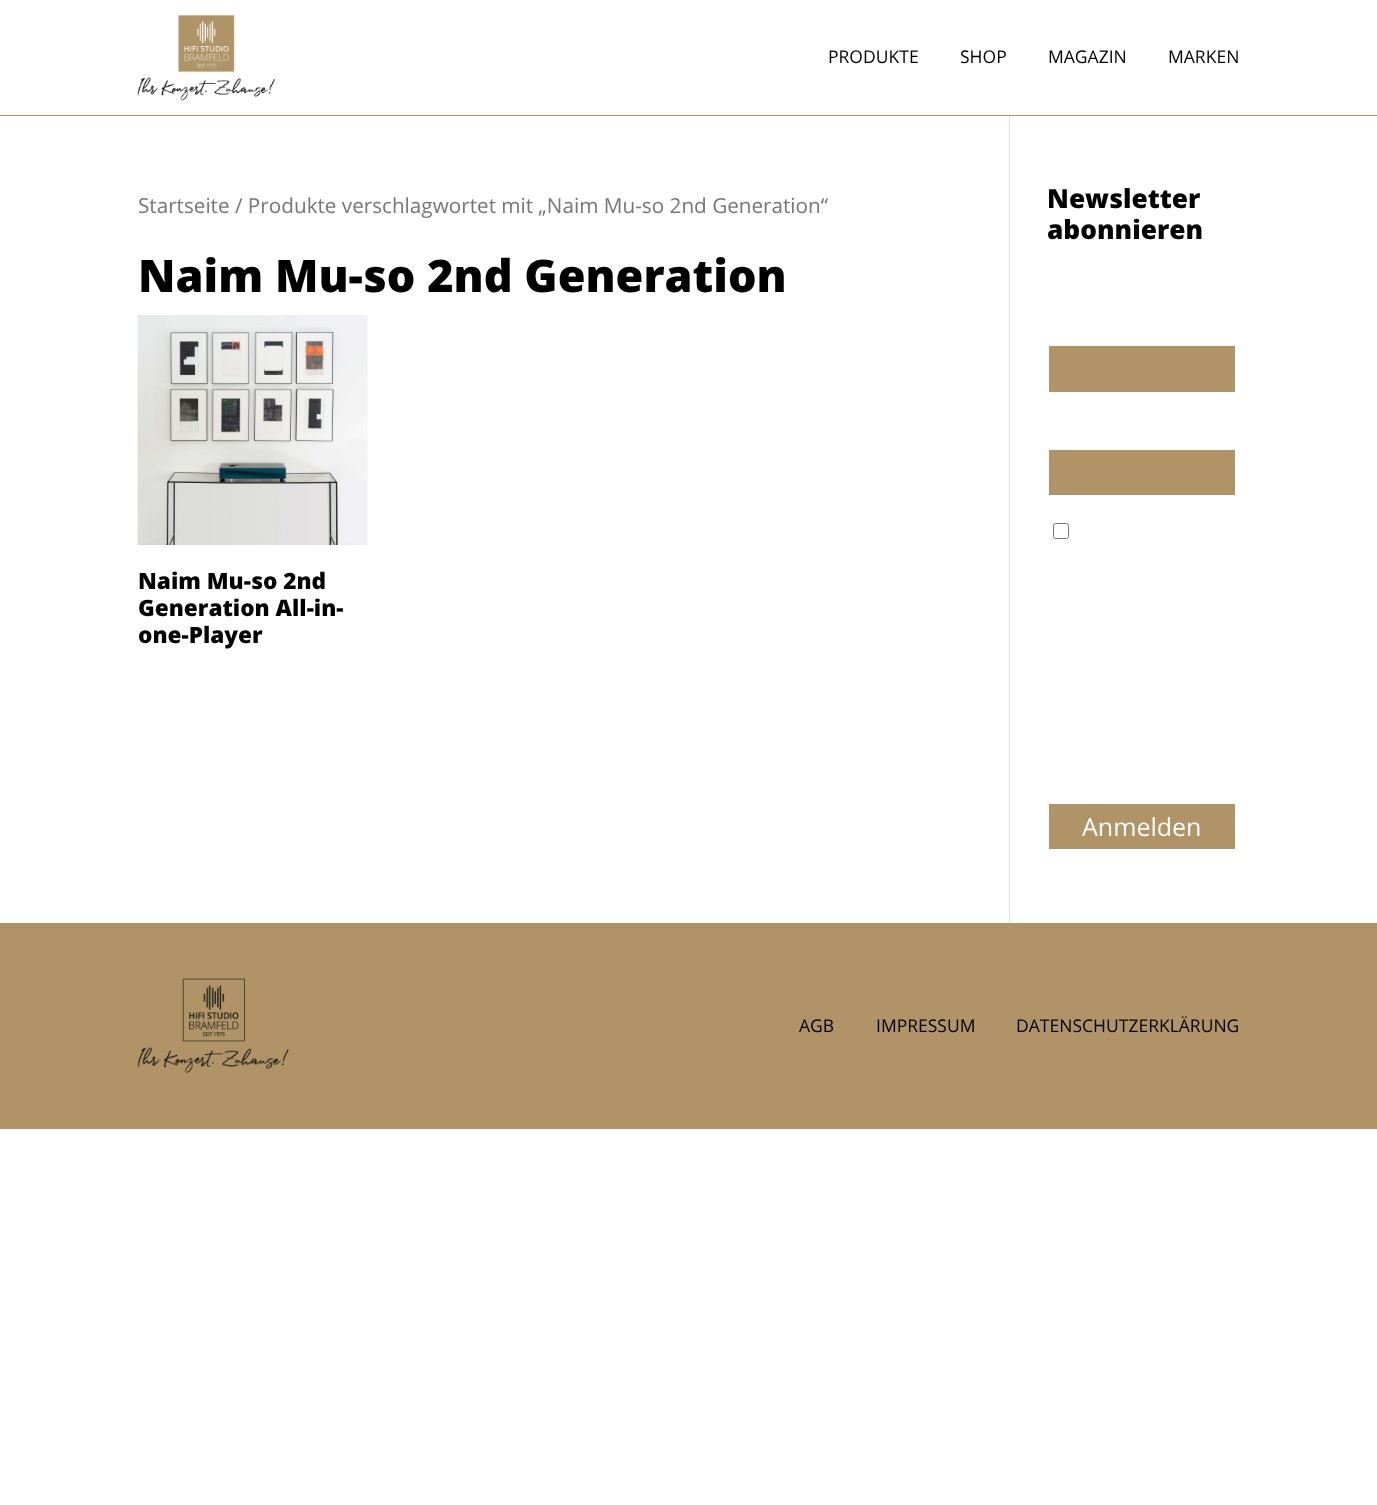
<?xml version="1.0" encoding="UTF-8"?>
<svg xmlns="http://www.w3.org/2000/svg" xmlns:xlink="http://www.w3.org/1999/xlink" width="1377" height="1505">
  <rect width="100%" height="100%" fill="#ffffff" />
  <rect x="1009" y="110" width="1" height="813" fill="#e2e2e2" />
  <rect x="1009" y="110" width="1" height="5" fill="#ffffff" />
  <rect y="115" width="1377" height="1" fill="#b09467" />
  <image x="137" y="15" width="138" height="86" xlink:href="image1.png" />
  <image x="137" y="315" width="231" height="230" xlink:href="image2.png" />
  <rect x="1049" y="346" width="186" height="46" fill="#b09467" />
  <rect x="1049" y="450" width="186" height="45" fill="#b09467" />
  <rect x="1053.5" y="523.5" width="15" height="15" rx="2" fill="none" stroke="#767676" />
  <rect x="1049" y="804" width="186" height="45" fill="#b09467" />
  <rect y="923" width="1377" height="206" fill="#b09467" />
  <image x="137" y="978" width="152" height="95" xlink:href="image3.png" />
  <text x="828" y="63" style="font-family: Open Sans; font-size: 17.5px; fill: #000000">PRODUKTE</text>
  <text x="960" y="63" style="font-family: Open Sans; font-size: 17.5px; fill: #000000">SHOP</text>
  <text x="1048" y="63" style="font-family: Open Sans; font-size: 17.5px; fill: #000000">MAGAZIN</text>
  <text x="1168" y="63" style="font-family: Open Sans; font-size: 17.5px; fill: #000000">MARKEN</text>
  <text x="138" y="213" style="font-family: Open Sans; font-size: 20.7px; fill: #767676">Startseite / Produkte verschlagwortet mit „Naim Mu-so 2nd Generation“</text>
  <text x="138" y="292" style="font-family: Open Sans; font-size: 45px; font-weight: 800; fill: #000000">Naim Mu-so 2nd Generation</text>
  <text x="138" y="589" style="font-family: Open Sans; font-size: 22.6px; font-weight: 800; fill: #000000">Naim Mu-so 2nd</text>
  <text x="138" y="616" style="font-family: Open Sans; font-size: 22.6px; font-weight: 800; fill: #000000">Generation All-in-</text>
  <text x="138" y="643" style="font-family: Open Sans; font-size: 22.6px; font-weight: 800; fill: #000000">one-Player</text>
  <text x="1047" y="208" style="font-family: Open Sans; font-size: 26.25px; font-weight: 800; fill: #000000">Newsletter</text>
  <text x="1047" y="239" style="font-family: Open Sans; font-size: 26.25px; font-weight: 800; fill: #000000">abonnieren</text>
  <text x="1082" y="836" style="font-family: Open Sans; font-size: 25px; fill: #ffffff">Anmelden</text>
  <text x="799" y="1032" style="font-family: Open Sans; font-size: 17.5px; fill: #000000">AGB</text>
  <text x="876" y="1032" style="font-family: Open Sans; font-size: 17.5px; fill: #000000">IMPRESSUM</text>
  <text x="1016" y="1032" style="font-family: Open Sans; font-size: 17.5px; fill: #000000">DATENSCHUTZERKLÄRUNG</text>
</svg>
